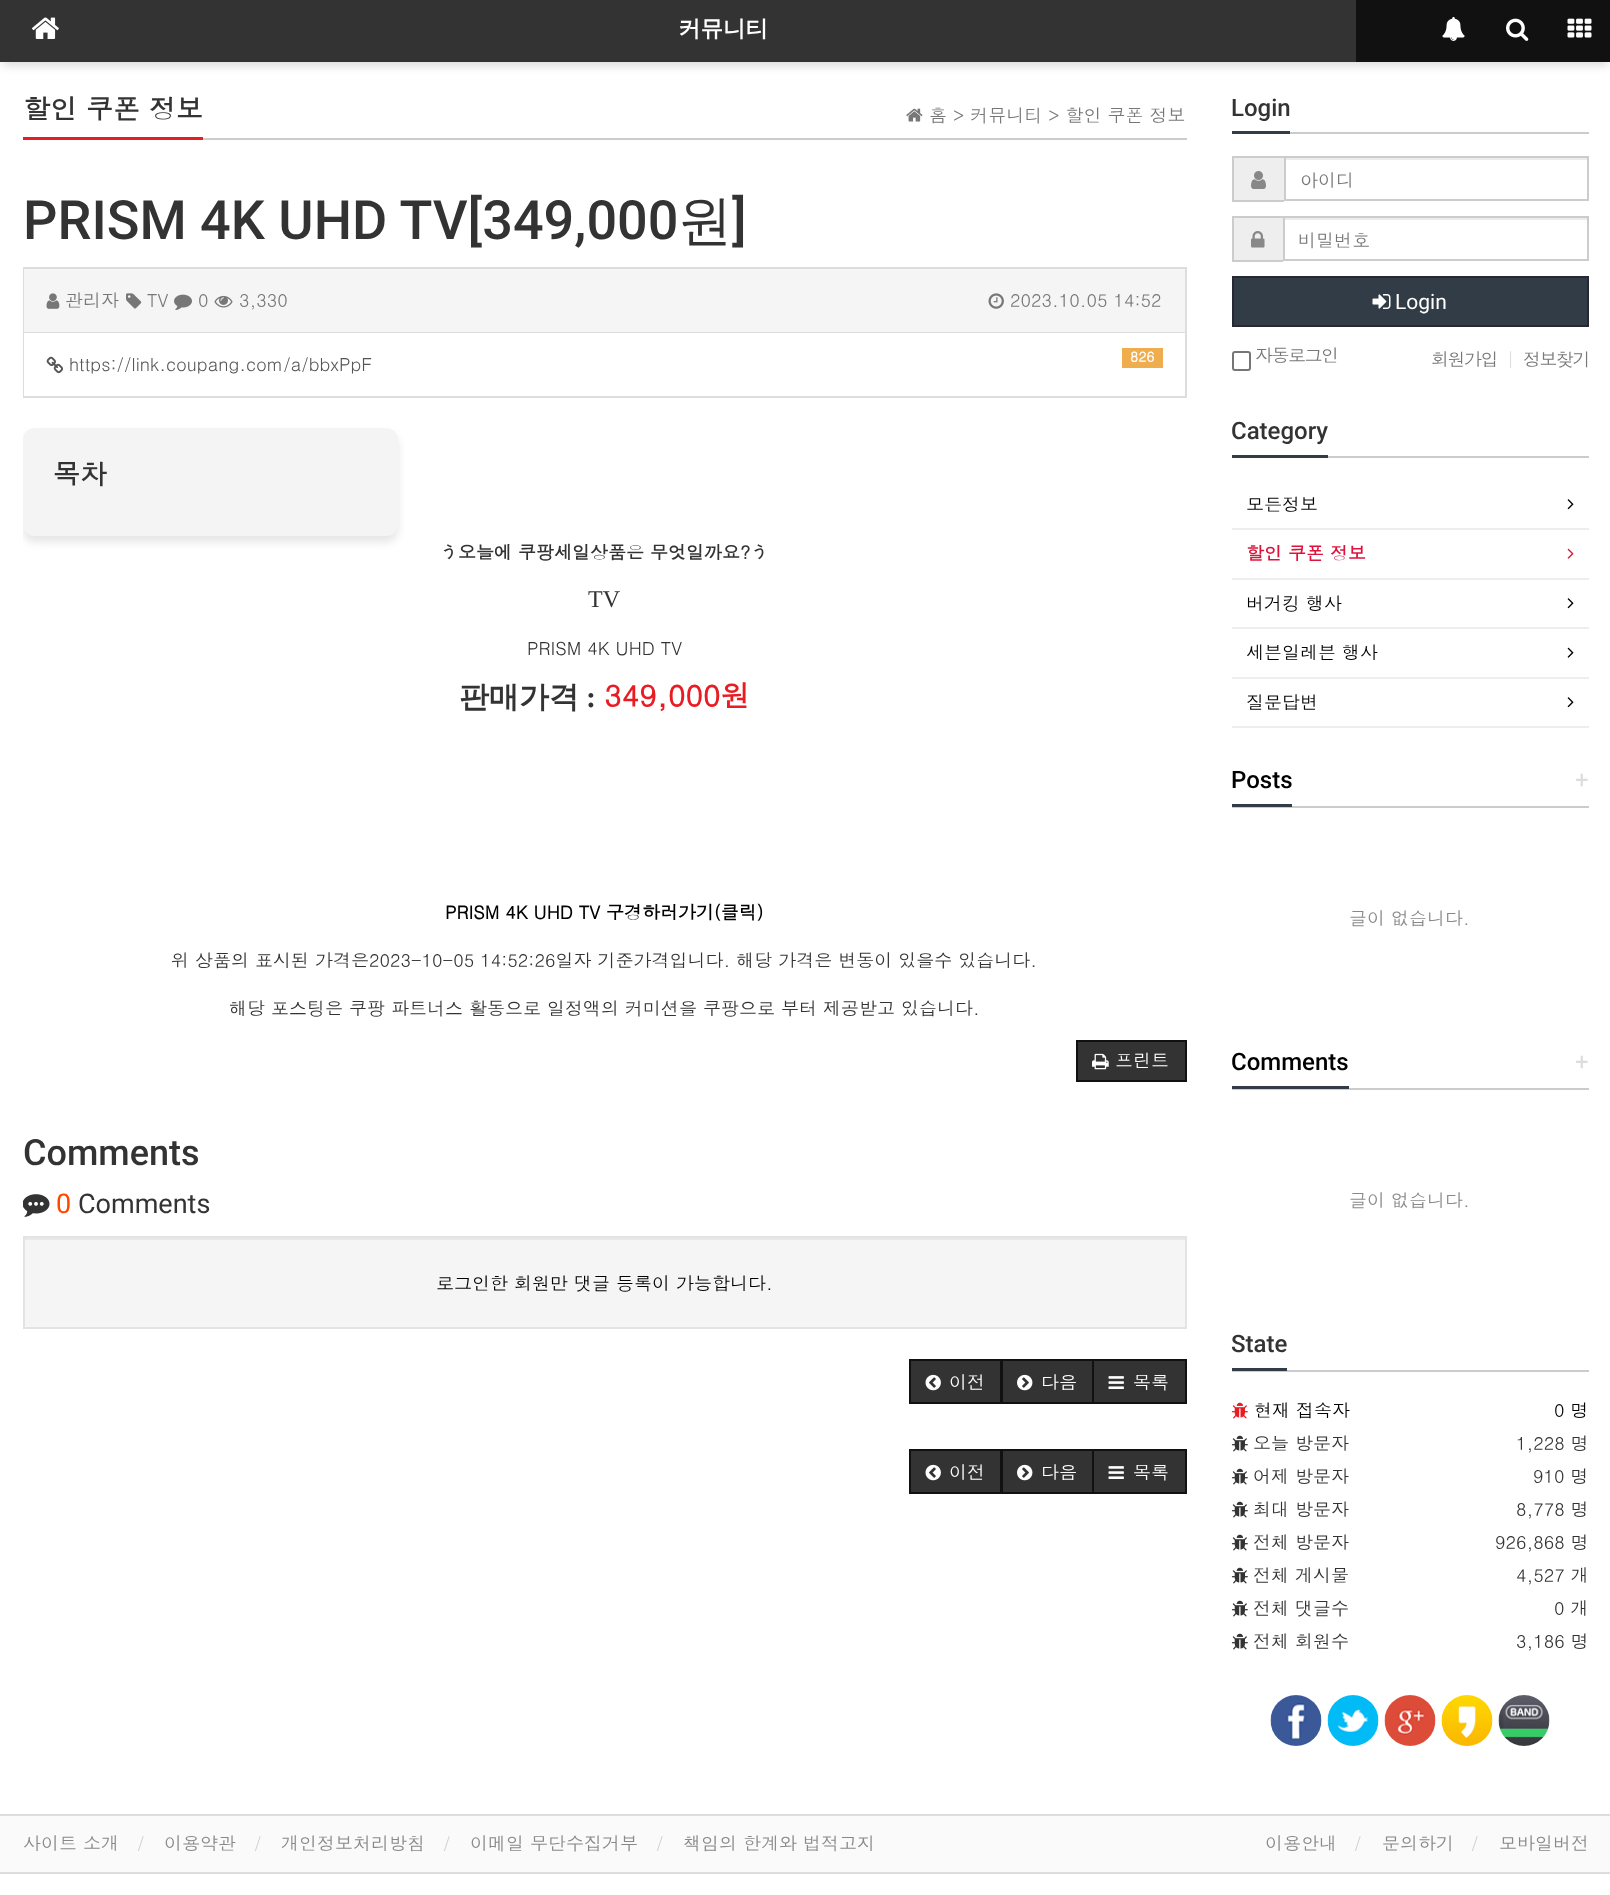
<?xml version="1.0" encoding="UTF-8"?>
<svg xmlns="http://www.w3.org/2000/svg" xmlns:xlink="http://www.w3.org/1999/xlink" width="1610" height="1895">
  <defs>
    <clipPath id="clip1"><rect x="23" y="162" width="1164" height="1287" /></clipPath>
  </defs>
  <rect width="100%" height="100%" fill="#ffffff" />
  <rect x="3" y="6" width="1605" height="60" fill="#191919" fill-opacity="0.15" filter="blur(4px)" />
  <rect x="1356" width="254" height="62" fill="#111111" />
  <rect width="1356" height="62" fill="#333333" />
  <image x="32" y="17" width="27" height="22" xlink:href="image1.png" />
  <image x="1442" y="16" width="23" height="25" xlink:href="image2.png" />
  <image x="1506" y="18" width="23" height="23" xlink:href="image3.png" />
  <image x="1567" y="18" width="25" height="20" xlink:href="image4.png" />
  <rect x="203" y="138" width="984" height="2" fill="#cccccc" />
  <rect x="23" y="137" width="180" height="3" fill="#e91b23" />
  <image x="906" y="108" width="17" height="14" xlink:href="image5.png" />
  <rect x="24" y="268" width="1162" height="129" fill="none" stroke="#dddddd" stroke-width="2" />
  <rect x="24" y="269" width="1161" height="63" fill="#f5f5f5" />
  <rect x="24" y="332" width="1161" height="1" fill="#dddddd" />
  <image x="46" y="293" width="14" height="16" xlink:href="image6.png" />
  <image x="126" y="293" width="16" height="16" xlink:href="image7.png" />
  <image x="174" y="294" width="18" height="16" xlink:href="image8.png" />
  <image x="214" y="295" width="19" height="13" xlink:href="image9.png" />
  <image x="988" y="293" width="16" height="16" xlink:href="image10.png" />
  <rect x="24" y="333" width="1" height="63" fill="#ffffff" />
  <image x="46" y="356" width="17" height="18" xlink:href="image11.png" />
  <rect x="1122" y="348" width="41" height="20" fill="#f0ad4e" />
  <g clip-path="url(#clip1)">
    <rect x="23" y="434" width="375" height="108" rx="12" fill="#000000" fill-opacity="0.1" filter="blur(4.5px)" />
  </g>
  <rect x="23" y="428" width="375" height="108" rx="12" fill="#f4f4f4" />
  <rect x="1077" y="1041" width="109" height="40" fill="#333333" stroke="#111111" stroke-width="2" />
  <image x="1092" y="1053" width="17" height="17" xlink:href="image12.png" />
  <image x="23" y="1194" width="27" height="23" xlink:href="image13.png" />
  <rect x="25" y="1240" width="1160" height="87" fill="#f5f5f5" />
  <rect x="24" y="1238" width="1161" height="2" fill="#e9e9e9" />
  <rect x="24" y="1237" width="1162" height="91" fill="none" stroke="#e3e3e3" stroke-width="2" />
  <rect x="910" y="1360" width="91" height="43" fill="#333333" stroke="#111111" stroke-width="2" />
  <image x="925" y="1374" width="16" height="17" xlink:href="image14.png" />
  <rect x="1002" y="1360" width="91" height="43" fill="#333333" stroke="#111111" stroke-width="2" />
  <image x="1017" y="1374" width="16" height="17" xlink:href="image15.png" />
  <rect x="1093" y="1360" width="93" height="43" fill="#333333" stroke="#111111" stroke-width="2" />
  <image x="1108" y="1376" width="16" height="13" xlink:href="image16.png" />
  <rect x="910" y="1450" width="91" height="43" fill="#333333" stroke="#111111" stroke-width="2" />
  <image x="925" y="1464" width="16" height="17" xlink:href="image14.png" />
  <rect x="1002" y="1450" width="91" height="43" fill="#333333" stroke="#111111" stroke-width="2" />
  <image x="1017" y="1464" width="16" height="17" xlink:href="image15.png" />
  <rect x="1093" y="1450" width="93" height="43" fill="#333333" stroke="#111111" stroke-width="2" />
  <image x="1108" y="1466" width="16" height="13" xlink:href="image16.png" />
  <rect x="1290" y="132" width="299" height="2" fill="#cccccc" />
  <rect x="1232" y="131" width="58" height="3" fill="#323c46" />
  <rect x="1234" y="158" width="50" height="42" fill="#eeeeee" />
  <rect x="1232" y="156" width="52" height="2" fill="#cccccc" />
  <rect x="1232" y="200" width="52" height="2" fill="#cccccc" />
  <rect x="1232" y="156" width="2" height="45" fill="#cccccc" />
  <image x="1251" y="171" width="15" height="18" xlink:href="image17.png" />
  <rect x="1286" y="158" width="301" height="2" fill="#ececec" />
  <rect x="1285" y="157" width="303" height="43" fill="none" stroke="#cccccc" stroke-width="2" />
  <rect x="1234" y="218" width="49" height="42" fill="#eeeeee" />
  <rect x="1232" y="216" width="51" height="2" fill="#cccccc" />
  <rect x="1232" y="260" width="51" height="2" fill="#cccccc" />
  <rect x="1232" y="216" width="2" height="45" fill="#cccccc" />
  <image x="1251" y="231" width="14" height="17" xlink:href="image18.png" />
  <rect x="1284" y="218" width="303" height="2" fill="#ececec" />
  <rect x="1284" y="217" width="304" height="43" fill="none" stroke="#cccccc" stroke-width="2" />
  <rect x="1233" y="277" width="355" height="49" fill="#323c46" stroke="#282832" stroke-width="2" />
  <image x="1372" y="294" width="19" height="15" xlink:href="image19.png" />
  <rect x="1233" y="352" width="17" height="18" rx="2" fill="none" stroke="#767676" stroke-width="2" />
  <rect x="1328" y="456" width="261" height="2" fill="#cccccc" />
  <rect x="1232" y="455" width="96" height="3" fill="#323c46" />
  <rect x="1232" y="528" width="357" height="2" fill="#eeeeee" />
  <image x="1567" y="499" width="7" height="11" xlink:href="image20.png" />
  <rect x="1232" y="578" width="357" height="2" fill="#eeeeee" />
  <image x="1567" y="548" width="7" height="11" xlink:href="image21.png" />
  <rect x="1232" y="627" width="357" height="2" fill="#eeeeee" />
  <image x="1567" y="598" width="7" height="11" xlink:href="image20.png" />
  <rect x="1232" y="677" width="357" height="2" fill="#eeeeee" />
  <image x="1567" y="647" width="7" height="11" xlink:href="image22.png" />
  <rect x="1232" y="726" width="357" height="2" fill="#eeeeee" />
  <image x="1567" y="697" width="7" height="11" xlink:href="image20.png" />
  <rect x="1232" y="806" width="357" height="2" fill="#cccccc" />
  <rect x="1232" y="804" width="60" height="3" fill="#323c46" />
  <rect x="1232" y="1088" width="357" height="2" fill="#cccccc" />
  <rect x="1232" y="1086" width="117" height="3" fill="#323c46" />
  <rect x="1232" y="1370" width="357" height="2" fill="#cccccc" />
  <rect x="1232" y="1368" width="55" height="3" fill="#323c46" />
  <image x="1231" y="1402" width="17" height="17" xlink:href="image23.png" />
  <image x="1231" y="1435" width="17" height="17" xlink:href="image24.png" />
  <image x="1231" y="1468" width="17" height="17" xlink:href="image24.png" />
  <image x="1231" y="1501" width="17" height="17" xlink:href="image24.png" />
  <image x="1231" y="1534" width="17" height="17" xlink:href="image24.png" />
  <image x="1231" y="1567" width="17" height="17" xlink:href="image24.png" />
  <image x="1231" y="1600" width="17" height="17" xlink:href="image24.png" />
  <image x="1231" y="1633" width="17" height="17" xlink:href="image24.png" />
  <image x="1270" y="1695" width="52" height="51" xlink:href="image25.png" />
  <image x="1327" y="1695" width="52" height="51" xlink:href="image26.png" />
  <image x="1384" y="1695" width="52" height="51" xlink:href="image27.png" />
  <image x="1441" y="1695" width="52" height="51" xlink:href="image28.png" />
  <image x="1498" y="1695" width="52" height="51" xlink:href="image29.png" />
  <rect y="1816" width="1610" height="56" fill="#fafafa" />
  <rect y="1814" width="1610" height="2" fill="#dddddd" />
  <rect y="1872" width="1610" height="2" fill="#dddddd" />
  <text x="678" y="36" style="font-family: WenQuanYi Zen Hei; font-size: 22.5px; font-weight: bold; fill: #ffffff">커뮤니티</text>
  <text x="23" y="119" style="font-family: Dotum; font-size: 27px; font-weight: bold; fill: #333333">할인 쿠폰 정보</text>
  <text x="929" y="122" style="font-family: Dotum; font-size: 18px; fill: #777777">홈 &gt; 커뮤니티 &gt; 할인 쿠폰 정보</text>
  <text x="23" y="239" style="font-family: Roboto; font-size: 54px; font-weight: 500; fill: #333333">PRISM 4K UHD TV[349,000</text>
  <text x="678" y="239" style="font-family: WenQuanYi Zen Hei; font-size: 54px; font-weight: 500; fill: #333333">원</text>
  <text x="732" y="239" style="font-family: Roboto; font-size: 54px; font-weight: 500; fill: #333333">]</text>
  <text x="65" y="307" style="font-family: Dotum; font-size: 18px; fill: #777777">관리자</text>
  <text x="147" y="307" style="font-family: Dotum; font-size: 18px; fill: #777777">TV</text>
  <text x="198" y="307" style="font-family: Dotum; font-size: 18px; fill: #777777">0</text>
  <text x="239" y="307" style="font-family: Dotum; font-size: 18px; fill: #777777">3,330</text>
  <text x="1010" y="307" style="font-family: Dotum; font-size: 18px; fill: #777777">2023.10.05 14:52</text>
  <text x="69" y="371" style="font-family: Dotum; font-size: 18px; fill: #555555">https://link.coupang.com/a/bbxPpF</text>
  <text x="1130" y="362" style="font-family: Dotum; font-size: 14px; font-weight: bold; fill: #ffffff">826</text>
  <text x="53" y="484" style="font-family: Dotum; font-size: 27px; font-weight: bold; fill: #333333">목차</text>
  <text x="440" y="559" style="font-family: Dotum; font-size: 18px; font-weight: bold; fill: #333333">う오늘에 쿠팡세일상품은 무엇일까요?う</text>
  <text x="588" y="607" style="font-family: Liberation Serif; font-size: 24px; fill: #333333">TV</text>
  <text x="527" y="655" style="font-family: Dotum; font-size: 18px; fill: #333333">PRISM 4K UHD TV</text>
  <text x="459" y="707" style="font-family: WenQuanYi Zen Hei; font-size: 30px; font-weight: bold; fill: #333333">판매가격</text>
  <text x="586" y="707" style="font-family: Liberation Serif; font-size: 30px; font-weight: bold; fill: #333333">:</text>
  <text x="604" y="707" style="font-family: Dotum; font-size: 30px; font-weight: bold; fill: #e91b23">349,000원</text>
  <text x="445" y="919" style="font-family: Dotum; font-size: 18px; font-weight: bold; fill: #000000">PRISM 4K UHD TV 구경하러가기(클릭)</text>
  <text x="171" y="967" style="font-family: Dotum; font-size: 18px; fill: #333333">위 상품의 표시된 가격은2023-10-05 14:52:26일자 기준가격입니다. 해당 가격은 변동이 있을수 있습니다.</text>
  <text x="229" y="1015" style="font-family: Dotum; font-size: 18px; fill: #333333">해당 포스팅은 쿠팡 파트너스 활동으로 일정액의 커미션을 쿠팡으로 부터 제공받고 있습니다.</text>
  <text x="1115" y="1067" style="font-family: Dotum; font-size: 18px; fill: #ffffff">프린트</text>
  <text x="23" y="1165" style="font-family: Roboto; font-size: 36px; font-weight: 500; fill: #333333">Comments</text>
  <text x="56" y="1213" style="font-family: Roboto; font-size: 27px; fill: #ff4500">0</text>
  <text x="78" y="1213" style="font-family: Roboto; font-size: 27px; fill: #333333">Comments</text>
  <text x="436" y="1290" style="font-family: Dotum; font-size: 18px; fill: #000000">로그인한 회원만 댓글 등록이 가능합니다.</text>
  <text x="949" y="1389" style="font-family: Dotum; font-size: 18px; fill: #ffffff">이전</text>
  <text x="1041" y="1389" style="font-family: Dotum; font-size: 18px; fill: #ffffff">다음</text>
  <text x="1133" y="1389" style="font-family: Dotum; font-size: 18px; fill: #ffffff">목록</text>
  <text x="949" y="1479" style="font-family: Dotum; font-size: 18px; fill: #ffffff">이전</text>
  <text x="1041" y="1479" style="font-family: Dotum; font-size: 18px; fill: #ffffff">다음</text>
  <text x="1133" y="1479" style="font-family: Dotum; font-size: 18px; fill: #ffffff">목록</text>
  <text x="1231" y="116" style="font-family: Roboto; font-size: 24px; font-weight: 500; fill: #333333">Login</text>
  <text x="1300" y="187" style="font-family: Dotum; font-size: 18px; fill: #777777">아이디</text>
  <text x="1298" y="247" style="font-family: Dotum; font-size: 18px; fill: #777777">비밀번호</text>
  <text x="1395" y="309" style="font-family: Roboto; font-size: 21px; fill: #ffffff">Login</text>
  <text x="1255" y="362" style="font-family: Dotum; font-size: 18px; letter-spacing: -1.5px; fill: #777777">자동로그인</text>
  <text x="1431" y="366" style="font-family: Dotum; font-size: 18px; letter-spacing: -1.5px; fill: #777777">회원가입</text>
  <text x="1506" y="366" style="font-family: Dotum; font-size: 18px; letter-spacing: -1.5px; fill: #dddddd">|</text>
  <text x="1523" y="366" style="font-family: Dotum; font-size: 18px; letter-spacing: -1.5px; fill: #777777">정보찾기</text>
  <text x="1231" y="439" style="font-family: Roboto; font-size: 24px; font-weight: 500; fill: #333333">Category</text>
  <text x="1246" y="511" style="font-family: Dotum; font-size: 18px; fill: #000000">모든정보</text>
  <text x="1246" y="560" style="font-family: Dotum; font-size: 18px; font-weight: bold; fill: #dc143c">할인 쿠폰 정보</text>
  <text x="1246" y="610" style="font-family: Dotum; font-size: 18px; fill: #000000">버거킹 행사</text>
  <text x="1246" y="659" style="font-family: Dotum; font-size: 18px; fill: #000000">세븐일레븐 행사</text>
  <text x="1246" y="709" style="font-family: Dotum; font-size: 18px; fill: #000000">질문답변</text>
  <text x="1231" y="788" style="font-family: Roboto; font-size: 24px; font-weight: 500; fill: #000000">Posts</text>
  <text x="1575" y="788" style="font-family: Roboto; font-size: 24px; fill: #dddddd">+</text>
  <text x="1349" y="925" style="font-family: Dotum; font-size: 18px; fill: #888888">글이 없습니다.</text>
  <text x="1231" y="1070" style="font-family: Roboto; font-size: 24px; font-weight: 500; fill: #000000">Comments</text>
  <text x="1575" y="1070" style="font-family: Roboto; font-size: 24px; fill: #dddddd">+</text>
  <text x="1349" y="1207" style="font-family: Dotum; font-size: 18px; fill: #888888">글이 없습니다.</text>
  <text x="1231" y="1352" style="font-family: Roboto; font-size: 24px; font-weight: 500; fill: #333333">State</text>
  <text x="1254" y="1417" style="font-family: Dotum; font-size: 18px; fill: #000000">현재 접속자</text>
  <text x="1554" y="1417" style="font-family: Dotum; font-size: 18px; fill: #000000">0 명</text>
  <text x="1253" y="1450" style="font-family: Dotum; font-size: 18px; fill: #333333">오늘 방문자</text>
  <text x="1516" y="1450" style="font-family: Dotum; font-size: 18px; fill: #333333">1,228 명</text>
  <text x="1253" y="1483" style="font-family: Dotum; font-size: 18px; fill: #333333">어제 방문자</text>
  <text x="1533" y="1483" style="font-family: Dotum; font-size: 18px; fill: #333333">910 명</text>
  <text x="1253" y="1516" style="font-family: Dotum; font-size: 18px; fill: #333333">최대 방문자</text>
  <text x="1516" y="1516" style="font-family: Dotum; font-size: 18px; fill: #333333">8,778 명</text>
  <text x="1253" y="1549" style="font-family: Dotum; font-size: 18px; fill: #333333">전체 방문자</text>
  <text x="1495" y="1549" style="font-family: Dotum; font-size: 18px; fill: #333333">926,868 명</text>
  <text x="1253" y="1582" style="font-family: Dotum; font-size: 18px; fill: #333333">전체 게시물</text>
  <text x="1516" y="1582" style="font-family: Dotum; font-size: 18px; fill: #333333">4,527 개</text>
  <text x="1253" y="1615" style="font-family: Dotum; font-size: 18px; fill: #333333">전체 댓글수</text>
  <text x="1554" y="1615" style="font-family: Dotum; font-size: 18px; fill: #333333">0 개</text>
  <text x="1253" y="1648" style="font-family: Dotum; font-size: 18px; fill: #333333">전체 회원수</text>
  <text x="1516" y="1648" style="font-family: Dotum; font-size: 18px; fill: #333333">3,186 명</text>
  <text x="23" y="1850" style="font-family: Dotum; font-size: 18px; fill: #888888">사이트 소개</text>
  <text x="137" y="1850" style="font-family: Dotum; font-size: 18px; fill: #cccccc">/</text>
  <text x="164" y="1850" style="font-family: Dotum; font-size: 18px; fill: #888888">이용약관</text>
  <text x="254" y="1850" style="font-family: Dotum; font-size: 18px; fill: #cccccc">/</text>
  <text x="281" y="1850" style="font-family: Dotum; font-size: 18px; fill: #888888">개인정보처리방침</text>
  <text x="443" y="1850" style="font-family: Dotum; font-size: 18px; fill: #cccccc">/</text>
  <text x="470" y="1850" style="font-family: Dotum; font-size: 18px; fill: #888888">이메일 무단수집거부</text>
  <text x="656" y="1850" style="font-family: Dotum; font-size: 18px; fill: #cccccc">/</text>
  <text x="683" y="1850" style="font-family: Dotum; font-size: 18px; fill: #888888">책임의 한계와 법적고지</text>
  <text x="1265" y="1850" style="font-family: Dotum; font-size: 18px; fill: #888888">이용안내</text>
  <text x="1354" y="1850" style="font-family: Dotum; font-size: 18px; fill: #cccccc">/</text>
  <text x="1382" y="1850" style="font-family: Dotum; font-size: 18px; fill: #888888">문의하기</text>
  <text x="1471" y="1850" style="font-family: Dotum; font-size: 18px; fill: #cccccc">/</text>
  <text x="1499" y="1850" style="font-family: Dotum; font-size: 18px; fill: #888888">모바일버전</text>
</svg>
